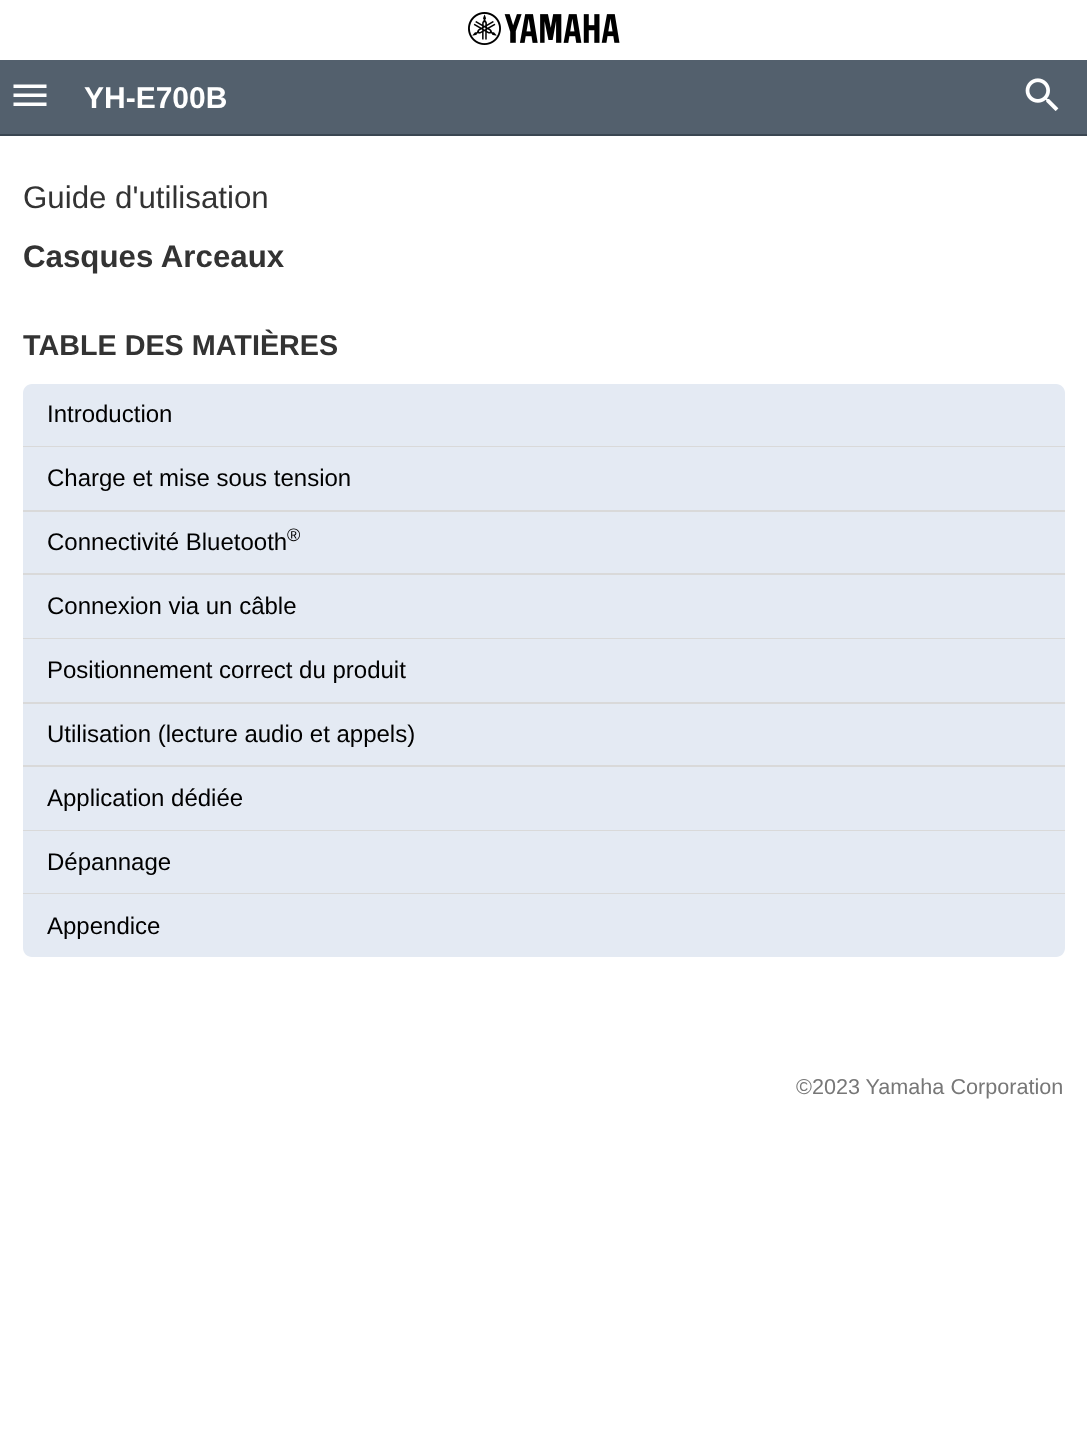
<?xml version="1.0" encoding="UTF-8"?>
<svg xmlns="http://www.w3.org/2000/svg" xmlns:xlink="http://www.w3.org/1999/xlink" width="1087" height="1436">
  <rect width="100%" height="100%" fill="#ffffff" />
  <image x="468" y="12" width="152" height="33" xlink:href="image1.png" />
  <rect y="60" width="1087" height="74" fill="#53606d" />
  <rect y="134" width="1087" height="2" fill="#3a4651" />
  <path d="M 13.5 106 h 33 v -3.5 h -33 z m 0 -9 h 33 v -3.5 h -33 z m 0 -12.5 v 3.5 h 33 v -3.5 z" fill="#ffffff" />
  <image x="1025" y="78" width="34" height="33" xlink:href="image2.png" />
  <path d="M 32 384 h 1024 c 5 0 9 4 9 9 v 54 h -1042 v -54 c 0 -5 4 -9 9 -9 z" fill="#e4eaf3" />
  <rect x="23" y="446" width="1042" height="1" fill="#d9d9d9" />
  <rect x="23" y="447" width="1042" height="63" fill="#e4eaf3" />
  <rect x="23" y="510" width="1042" height="2" fill="#d9d9d9" />
  <rect x="23" y="512" width="1042" height="61" fill="#e4eaf3" />
  <rect x="23" y="573" width="1042" height="2" fill="#d9d9d9" />
  <rect x="23" y="575" width="1042" height="63" fill="#e4eaf3" />
  <rect x="23" y="638" width="1042" height="1" fill="#d9d9d9" />
  <rect x="23" y="639" width="1042" height="63" fill="#e4eaf3" />
  <rect x="23" y="702" width="1042" height="2" fill="#d9d9d9" />
  <rect x="23" y="704" width="1042" height="61" fill="#e4eaf3" />
  <rect x="23" y="765" width="1042" height="2" fill="#d9d9d9" />
  <rect x="23" y="767" width="1042" height="63" fill="#e4eaf3" />
  <rect x="23" y="830" width="1042" height="1" fill="#d9d9d9" />
  <rect x="23" y="831" width="1042" height="62" fill="#e4eaf3" />
  <rect x="23" y="893" width="1042" height="1" fill="#d9d9d9" />
  <path d="M 23 894 h 1042 v 54 c 0 5 -4 9 -9 9 h -1024 c -5 0 -9 -4 -9 -9 z" fill="#e4eaf3" />
  <text x="84" y="108" style="font-family: Liberation Sans; font-size: 30px; font-weight: bold; fill: #ffffff">YH-E700B</text>
  <text x="23" y="208" style="font-family: Liberation Sans; font-size: 31.25px; fill: #333333">Guide d'utilisation</text>
  <text x="23" y="267" style="font-family: Liberation Sans; font-size: 31.25px; font-weight: bold; fill: #333333">Casques Arceaux</text>
  <text x="23" y="355" style="font-family: Liberation Sans; font-size: 28.75px; font-weight: bold; fill: #333333">TABLE DES MATIÈRES</text>
  <text x="47" y="422" style="font-family: Liberation Sans; font-size: 24px; fill: #000000">Introduction</text>
  <text x="47" y="486" style="font-family: Liberation Sans; font-size: 24px; fill: #000000">Charge et mise sous tension</text>
  <text x="47" y="550" style="font-family: Liberation Sans; font-size: 24px; fill: #000000">Connectivité Bluetooth</text>
  <text x="287" y="541" style="font-family: Liberation Sans; font-size: 18px; fill: #000000">®</text>
  <text x="47" y="614" style="font-family: Liberation Sans; font-size: 24px; fill: #000000">Connexion via un câble</text>
  <text x="47" y="678" style="font-family: Liberation Sans; font-size: 24px; fill: #000000">Positionnement correct du produit</text>
  <text x="47" y="742" style="font-family: Liberation Sans; font-size: 24px; fill: #000000">Utilisation (lecture audio et appels)</text>
  <text x="47" y="806" style="font-family: Liberation Sans; font-size: 24px; fill: #000000">Application dédiée</text>
  <text x="47" y="870" style="font-family: Liberation Sans; font-size: 24px; fill: #000000">Dépannage</text>
  <text x="47" y="934" style="font-family: Liberation Sans; font-size: 24px; fill: #000000">Appendice</text>
  <text x="796" y="1094" style="font-family: Liberation Sans; font-size: 21.6px; fill: #777777">©2023 Yamaha Corporation</text>
</svg>
